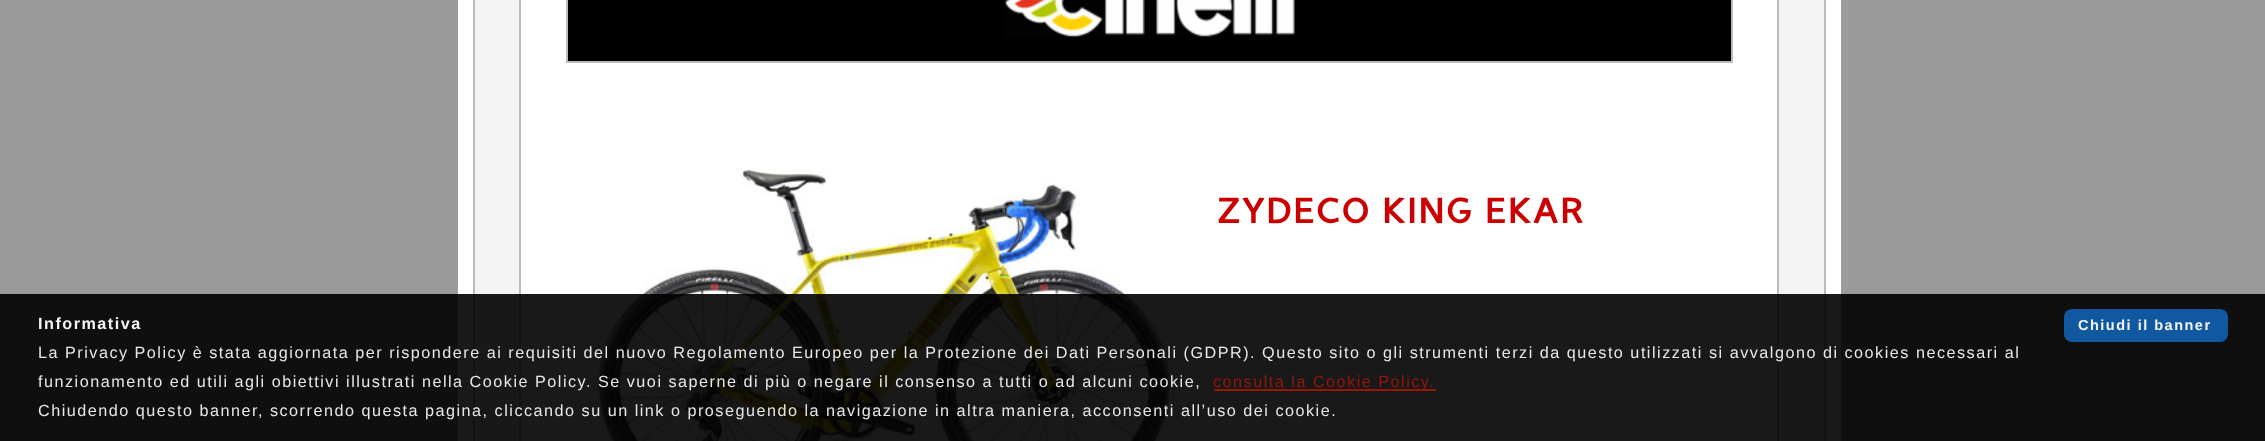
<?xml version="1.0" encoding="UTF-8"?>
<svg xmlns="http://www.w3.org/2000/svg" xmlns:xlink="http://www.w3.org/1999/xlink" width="2265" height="441">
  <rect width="100%" height="100%" fill="#9b9b9b" />
  <rect x="458" width="1383" height="441" fill="#ffffff" />
  <rect x="475" width="1349" height="441" fill="#f4f4f4" />
  <rect x="1824" width="2" height="441" fill="#bcbabc" />
  <rect x="473" width="2" height="441" fill="#bcbabc" />
  <rect x="520" y="-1" width="1258" height="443" fill="#ffffff" stroke="#bcbabc" stroke-width="2" />
  <rect x="568" width="1163" height="61" fill="#000000" />
  <image x="1004" y="0" width="291" height="38" xlink:href="image1.png" />
  <rect x="567" y="-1" width="1165" height="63" fill="none" stroke="#bcbabc" stroke-width="2" />
  <image x="594" y="168" width="577" height="273" xlink:href="image2.png" />
  <rect y="294" width="2265" height="147" fill="#000000" fill-opacity="0.9" />
  <rect x="2064" y="309" width="164" height="33" rx="8" fill="#1058a0" />
  <rect x="1214" y="389" width="222" height="2" fill="#a51608" fill-opacity="0.9" />
  <text x="1217" y="223" style="font-family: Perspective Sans; font-size: 36px; font-weight: bold; letter-spacing: 1.5px; fill: #cc0000">ZYDECO KING EKAR</text>
  <text x="38" y="329" style="font-family: Liberation Sans; font-size: 16.2px; font-weight: bold; letter-spacing: 1.5px; fill: #f5f5f5">Informativa</text>
  <text x="2078" y="330" style="font-family: Liberation Sans; font-size: 14.5px; font-weight: bold; letter-spacing: 1.5px; fill: #f5f5f5">Chiudi il banner</text>
  <text x="38" y="358" style="font-family: Liberation Sans; font-size: 16.2px; letter-spacing: 1.5px; fill: #e8e7e7">La Privacy Policy è stata aggiornata per rispondere ai requisiti del nuovo Regolamento Europeo per la Protezione dei Dati Personali (GDPR). Questo sito o gli strumenti terzi da questo utilizzati si avvalgono di cookies necessari al</text>
  <text x="38" y="387" style="font-family: Liberation Sans; font-size: 16.2px; letter-spacing: 1.5px; fill: #e8e7e7">funzionamento ed utili agli obiettivi illustrati nella Cookie Policy. Se vuoi saperne di più o negare il consenso a tutti o ad alcuni cookie,</text>
  <text x="1213" y="387" style="font-family: Liberation Sans; font-size: 16.2px; letter-spacing: 1.5px; fill: #961609">consulta la Cookie Policy.</text>
  <text x="38" y="416" style="font-family: Liberation Sans; font-size: 16.2px; letter-spacing: 1.5px; fill: #e8e7e7">Chiudendo questo banner, scorrendo questa pagina, cliccando su un link o proseguendo la navigazione in altra maniera, acconsenti all’uso dei cookie.</text>
</svg>
